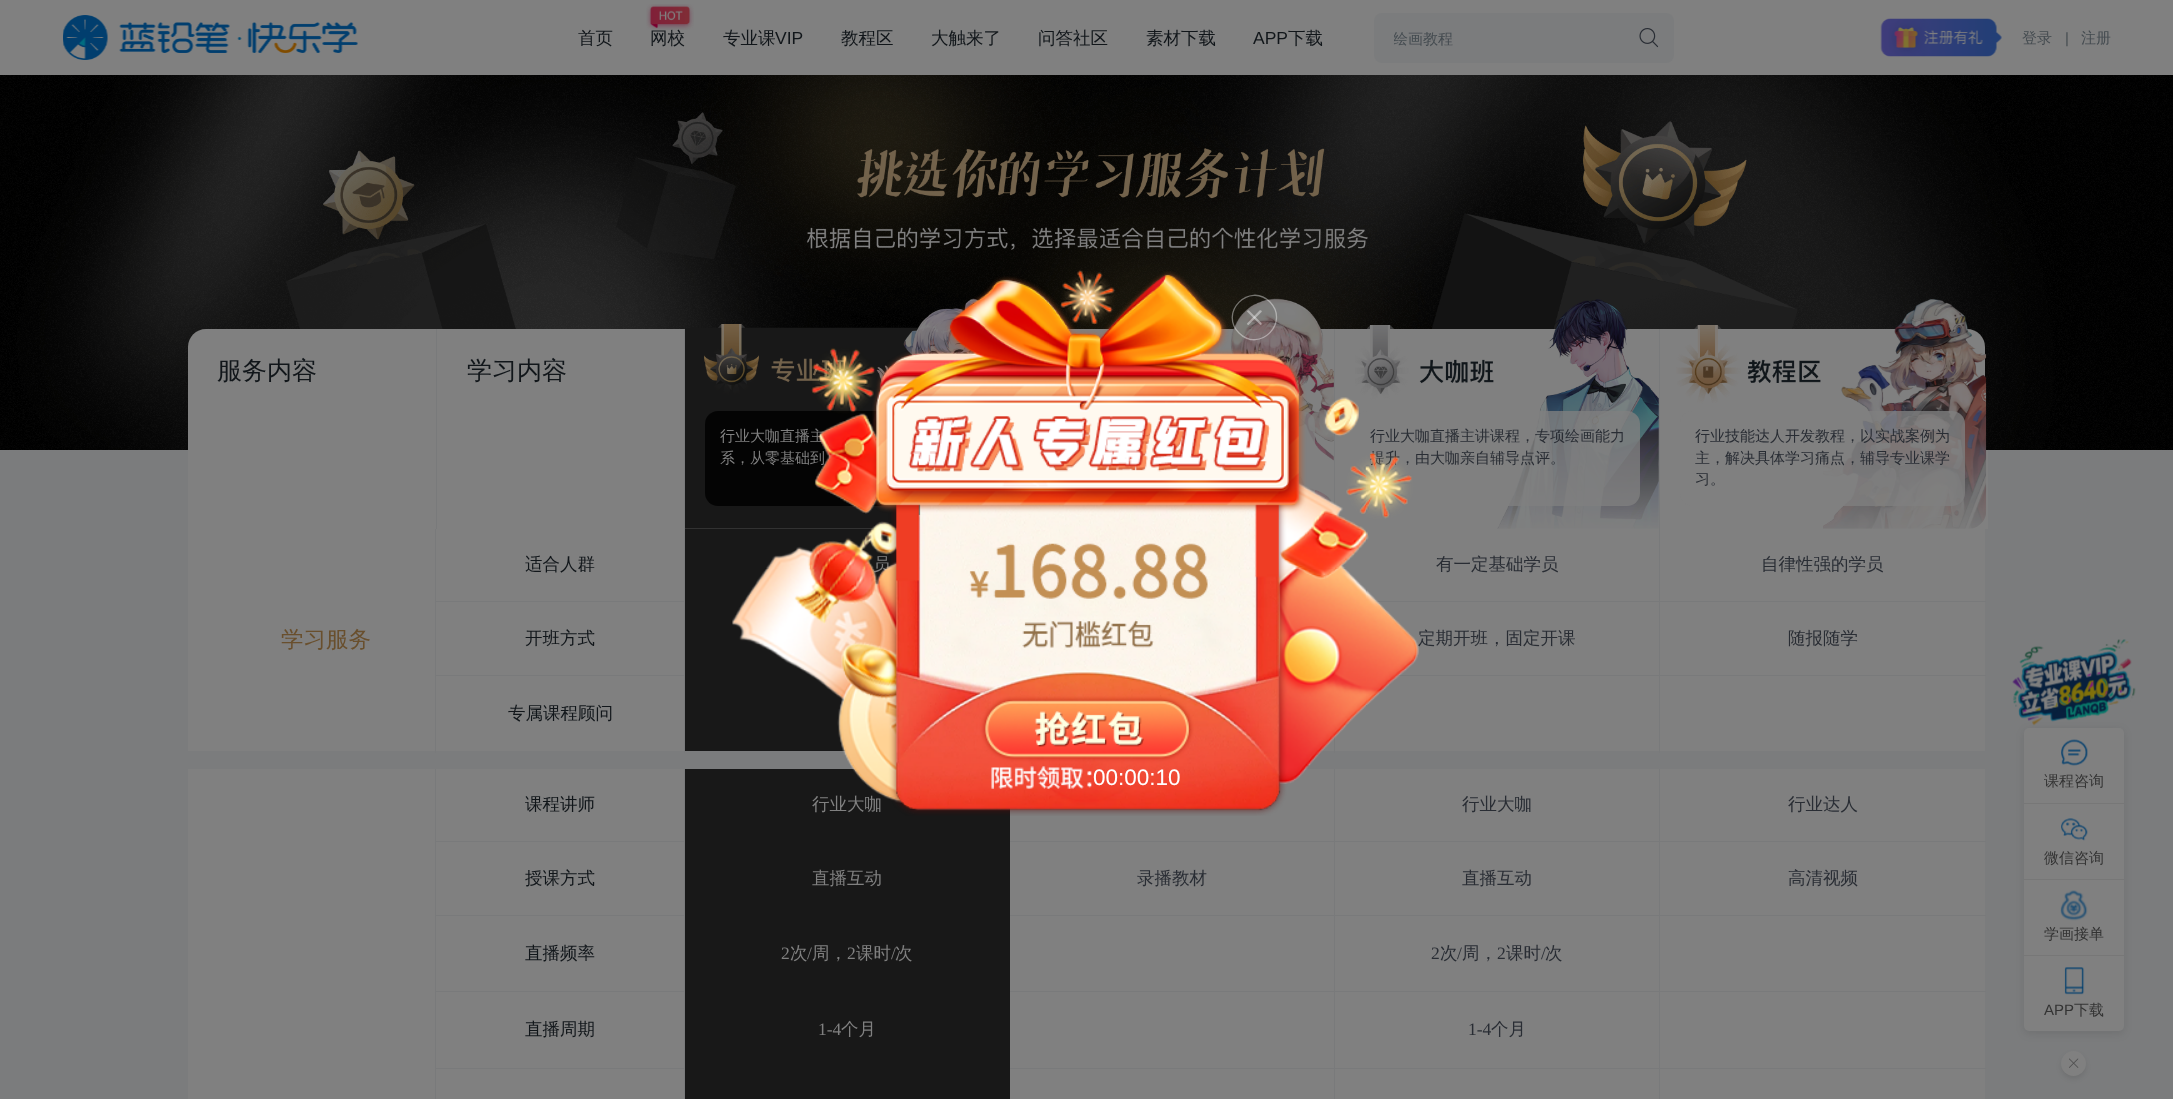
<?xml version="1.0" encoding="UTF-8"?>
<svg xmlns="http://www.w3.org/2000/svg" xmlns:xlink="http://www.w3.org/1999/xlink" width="2173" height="1099">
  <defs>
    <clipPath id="clip1"><rect x="1394" y="29" width="277" height="21" /></clipPath>
  </defs>
  <rect width="100%" height="100%" fill="#808080" />
  <image x="63" y="15" width="295" height="45" xlink:href="image1.png" />
  <rect x="1374" y="13" width="300" height="50" rx="8" fill="#7b7c7d" />
  <image x="1639" y="28" width="20" height="20" xlink:href="image3.png" />
  <image x="1880" y="18" width="122" height="39" xlink:href="image4.png" />
  <rect y="450" width="2173" height="649" fill="#7b7c7d" />
  <image x="0" y="75" width="2173" height="375" xlink:href="image5.png" />
  <rect x="188" y="450" width="1800" height="79" fill="#808080" />
  <path d="M 206 329 h 232 v 200 h -232 c -10 0 -18 -8 -18 -18 v -164 c 0 -10 8 -18 18 -18 z" fill="#808080" />
  <rect x="436" y="329" width="1" height="200" fill="#797a7b" />
  <rect x="438" y="329" width="246" height="121" fill="#808080" />
  <rect x="684" y="329" width="1" height="200" fill="#797a7b" />
  <rect x="1067" y="329" width="267" height="121" fill="#808080" />
  <rect x="1334" y="329" width="1" height="178" fill="#797a7b" />
  <image x="1064" y="298" width="270" height="208" xlink:href="image6.png" />
  <rect x="1030" y="411" width="285" height="95" rx="13" fill="#808080" fill-opacity="0.8" />
  <image x="685" y="298" width="294" height="231" xlink:href="image7.png" />
  <rect x="705" y="411" width="285" height="95" rx="13" fill="#000000" fill-opacity="0.8" />
  <rect x="1335" y="329" width="324" height="121" fill="#808080" />
  <rect x="1659" y="329" width="1" height="200" fill="#797a7b" />
  <image x="1355" y="299" width="304" height="230" xlink:href="image8.png" />
  <rect x="1355" y="411" width="285" height="95" rx="13" fill="#808080" fill-opacity="0.8" />
  <path d="M 1660 329 h 307 c 10 0 18 8 18 18 v 164 c 0 10 -8 18 -18 18 h -307 z" fill="#808080" />
  <image x="1676" y="299" width="311" height="230" xlink:href="image9.png" />
  <rect x="1680" y="411" width="285" height="95" rx="13" fill="#808080" fill-opacity="0.8" />
  <rect x="188" y="529" width="1797" height="222" fill="#808080" />
  <rect x="685" y="529" width="212" height="74" fill="#181818" />
  <rect x="435" y="601" width="250" height="1" fill="#797a7b" />
  <rect x="435" y="675" width="250" height="1" fill="#797a7b" />
  <rect x="435" y="529" width="1" height="224" fill="#797a7b" />
  <rect x="684" y="675" width="1" height="78" fill="#797a7b" />
  <rect x="684" y="529" width="1" height="147" fill="#797a7b" />
  <rect x="685" y="603" width="132" height="73" fill="#181818" />
  <rect x="1373" y="601" width="613" height="1" fill="#797a7b" />
  <rect x="1396" y="675" width="590" height="1" fill="#797a7b" />
  <rect x="1659" y="675" width="1" height="78" fill="#797a7b" />
  <rect x="1659" y="529" width="1" height="147" fill="#797a7b" />
  <rect x="685" y="676" width="161" height="75" fill="#181818" />
  <rect x="1334" y="734" width="1" height="19" fill="#797a7b" />
  <rect x="188" y="769" width="1797" height="330" fill="#808080" />
  <rect x="435" y="841" width="250" height="1" fill="#797a7b" />
  <rect x="435" y="915" width="250" height="1" fill="#797a7b" />
  <rect x="435" y="991" width="250" height="1" fill="#797a7b" />
  <rect x="435" y="1068" width="250" height="1" fill="#797a7b" />
  <rect x="435" y="769" width="1" height="330" fill="#797a7b" />
  <rect x="1009" y="841" width="977" height="1" fill="#797a7b" />
  <rect x="1009" y="915" width="977" height="1" fill="#797a7b" />
  <rect x="1009" y="991" width="977" height="1" fill="#797a7b" />
  <rect x="1009" y="1068" width="977" height="1" fill="#797a7b" />
  <rect x="685" y="769" width="325" height="330" fill="#181818" />
  <rect x="684" y="1068" width="1" height="31" fill="#797a7b" />
  <rect x="684" y="991" width="1" height="78" fill="#797a7b" />
  <rect x="684" y="915" width="1" height="78" fill="#797a7b" />
  <rect x="684" y="769" width="1" height="147" fill="#797a7b" />
  <rect x="1334" y="1068" width="1" height="31" fill="#797a7b" />
  <rect x="1334" y="991" width="1" height="78" fill="#797a7b" />
  <rect x="1334" y="915" width="1" height="78" fill="#797a7b" />
  <rect x="1334" y="769" width="1" height="147" fill="#797a7b" />
  <rect x="1659" y="1068" width="1" height="31" fill="#797a7b" />
  <rect x="1659" y="991" width="1" height="78" fill="#797a7b" />
  <rect x="1659" y="915" width="1" height="78" fill="#797a7b" />
  <rect x="1659" y="769" width="1" height="147" fill="#797a7b" />
  <image x="2012" y="639" width="124" height="87" xlink:href="image11.png" />
  <rect x="2024" y="730" width="100" height="304" rx="5" fill="#000000" fill-opacity="0.09" filter="blur(4px)" />
  <rect x="2024" y="728" width="100" height="303" rx="5" fill="#808080" />
  <image x="2061" y="739" width="27" height="27" xlink:href="image12.png" />
  <rect x="2024" y="803" width="100" height="1" fill="#777777" />
  <image x="2061" y="818" width="27" height="23" xlink:href="image13.png" />
  <rect x="2024" y="879" width="100" height="1" fill="#777777" />
  <image x="2060" y="890" width="28" height="31" xlink:href="image14.png" />
  <rect x="2024" y="955" width="100" height="1" fill="#777777" />
  <image x="2064" y="967" width="21" height="28" xlink:href="image15.png" />
  <rect x="2061" y="1054" width="25" height="25" rx="12.5" fill="#000000" fill-opacity="0.09" filter="blur(2.5px)" />
  <circle cx="2073.5" cy="1063.5" r="12.5" fill="#808080" />
  <image x="2069" y="1058" width="10" height="10" xlink:href="image16.png" />
  <text x="578" y="44" style="font-family: WenQuanYi Zen Hei; font-size: 17.5px; font-weight: 500; fill: #11161a">首页</text>
  <text x="650" y="44" style="font-family: WenQuanYi Zen Hei; font-size: 17.5px; font-weight: 500; fill: #11161a">网校</text>
  <image x="646" y="4" width="48" height="26" xlink:href="image2.png" />
  <text x="723" y="44" style="font-family: WenQuanYi Zen Hei; font-size: 17.5px; font-weight: 500; fill: #11161a">专业课</text>
  <text x="775" y="44" style="font-family: Liberation Sans; font-size: 17.5px; fill: #11161a">VIP</text>
  <text x="841" y="44" style="font-family: WenQuanYi Zen Hei; font-size: 17.5px; font-weight: 500; fill: #11161a">教程区</text>
  <text x="931" y="44" style="font-family: WenQuanYi Zen Hei; font-size: 17.5px; font-weight: 500; fill: #11161a">大触来了</text>
  <text x="1038" y="44" style="font-family: WenQuanYi Zen Hei; font-size: 17.5px; font-weight: 500; fill: #11161a">问答社区</text>
  <text x="1146" y="44" style="font-family: WenQuanYi Zen Hei; font-size: 17.5px; font-weight: 500; fill: #11161a">素材下载</text>
  <text x="1253" y="44" style="font-family: Liberation Sans; font-size: 17.5px; fill: #11161a">APP</text>
  <text x="1288" y="44" style="font-family: WenQuanYi Zen Hei; font-size: 17.5px; font-weight: 500; fill: #11161a">下载</text>
  <g clip-path="url(#clip1)">
    <text x="1393" y="44" style="font-family: WenQuanYi Zen Hei; font-size: 15px; font-weight: 500; fill: #444b50">绘画教程</text>
  </g>
  <text x="2022" y="43" style="font-family: WenQuanYi Zen Hei; font-size: 15px; font-weight: 500; fill: #444b50">登录</text>
  <text x="2065" y="43" style="font-family: Liberation Sans; font-size: 15px; fill: #444b50">|</text>
  <text x="2081" y="43" style="font-family: WenQuanYi Zen Hei; font-size: 15px; font-weight: 500; fill: #444b50">注册</text>
  <text x="217" y="379" style="font-family: WenQuanYi Zen Hei; font-size: 25px; font-weight: 500; fill: #11161a">服务内容</text>
  <text x="467" y="379" style="font-family: WenQuanYi Zen Hei; font-size: 25px; font-weight: 500; fill: #11161a">学习内容</text>
  <text x="720" y="441" style="font-family: WenQuanYi Zen Hei; font-size: 15px; font-weight: 500; fill: #808080">行业大咖直播主</text>
  <text x="720" y="463" style="font-family: WenQuanYi Zen Hei; font-size: 15px; font-weight: 500; fill: #808080">系，从零基础到</text>
  <text x="1370" y="441" style="font-family: WenQuanYi Zen Hei; font-size: 15px; font-weight: 500; fill: #292d34">行业大咖直播主讲课程，专项绘画能力</text>
  <text x="1370" y="463" style="font-family: WenQuanYi Zen Hei; font-size: 15px; font-weight: 500; fill: #292d34">提升，由大咖亲自辅导点评。</text>
  <text x="1695" y="441" style="font-family: WenQuanYi Zen Hei; font-size: 15px; font-weight: 500; fill: #292d34">行业技能达人开发教程，以实战案例为</text>
  <text x="1695" y="463" style="font-family: WenQuanYi Zen Hei; font-size: 15px; font-weight: 500; fill: #292d34">主，解决具体学习痛点，辅导专业课学</text>
  <text x="1695" y="484" style="font-family: WenQuanYi Zen Hei; font-size: 15px; font-weight: 500; fill: #292d34">习。</text>
  <text x="525" y="570" style="font-family: WenQuanYi Zen Hei; font-size: 17.5px; font-weight: 500; fill: #11161a">适合人群</text>
  <text x="873" y="570" style="font-family: WenQuanYi Zen Hei; font-size: 17.5px; font-weight: 500; fill: #808080">员</text>
  <text x="1436" y="570" style="font-family: WenQuanYi Zen Hei; font-size: 17.5px; font-weight: 500; fill: #292d34">有一定基础学员</text>
  <text x="1761" y="570" style="font-family: WenQuanYi Zen Hei; font-size: 17.5px; font-weight: 500; fill: #292d34">自律性强的学员</text>
  <text x="281" y="647" style="font-family: WenQuanYi Zen Hei; font-size: 22.5px; font-weight: 500; fill: #694f2d">学习服务</text>
  <text x="525" y="644" style="font-family: WenQuanYi Zen Hei; font-size: 17.5px; font-weight: 500; fill: #11161a">开班方式</text>
  <text x="1418" y="644" style="font-family: WenQuanYi Zen Hei; font-size: 17.5px; font-weight: 500; fill: #292d34">定期开班，固定开课</text>
  <text x="1788" y="644" style="font-family: WenQuanYi Zen Hei; font-size: 17.5px; font-weight: 500; fill: #292d34">随报随学</text>
  <text x="508" y="719" style="font-family: WenQuanYi Zen Hei; font-size: 17.5px; font-weight: 500; fill: #11161a">专属课程顾问</text>
  <text x="525" y="810" style="font-family: WenQuanYi Zen Hei; font-size: 17.5px; font-weight: 500; fill: #11161a">课程讲师</text>
  <text x="812" y="810" style="font-family: WenQuanYi Zen Hei; font-size: 17.5px; font-weight: 500; fill: #808080">行业大咖</text>
  <text x="1462" y="810" style="font-family: WenQuanYi Zen Hei; font-size: 17.5px; font-weight: 500; fill: #292d34">行业大咖</text>
  <text x="1788" y="810" style="font-family: WenQuanYi Zen Hei; font-size: 17.5px; font-weight: 500; fill: #292d34">行业达人</text>
  <text x="525" y="884" style="font-family: WenQuanYi Zen Hei; font-size: 17.5px; font-weight: 500; fill: #11161a">授课方式</text>
  <text x="812" y="884" style="font-family: WenQuanYi Zen Hei; font-size: 17.5px; font-weight: 500; fill: #808080">直播互动</text>
  <text x="1137" y="884" style="font-family: WenQuanYi Zen Hei; font-size: 17.5px; font-weight: 500; fill: #292d34">录播教材</text>
  <text x="1462" y="884" style="font-family: WenQuanYi Zen Hei; font-size: 17.5px; font-weight: 500; fill: #292d34">直播互动</text>
  <text x="1788" y="884" style="font-family: WenQuanYi Zen Hei; font-size: 17.5px; font-weight: 500; fill: #292d34">高清视频</text>
  <text x="525" y="959" style="font-family: WenQuanYi Zen Hei; font-size: 17.5px; font-weight: 500; fill: #11161a">直播频率</text>
  <text x="781" y="959" style="font-family: Liberation Serif; font-size: 17.5px; fill: #808080">2</text>
  <text x="790" y="959" style="font-family: WenQuanYi Zen Hei; font-size: 17.5px; font-weight: 500; fill: #808080">次</text>
  <text x="807" y="959" style="font-family: Liberation Serif; font-size: 17.5px; fill: #808080">/</text>
  <text x="812" y="959" style="font-family: WenQuanYi Zen Hei; font-size: 17.5px; font-weight: 500; fill: #808080">周，</text>
  <text x="847" y="959" style="font-family: Liberation Serif; font-size: 17.5px; fill: #808080">2</text>
  <text x="856" y="959" style="font-family: WenQuanYi Zen Hei; font-size: 17.5px; font-weight: 500; fill: #808080">课时</text>
  <text x="891" y="959" style="font-family: Liberation Serif; font-size: 17.5px; fill: #808080">/</text>
  <text x="895" y="959" style="font-family: WenQuanYi Zen Hei; font-size: 17.5px; font-weight: 500; fill: #808080">次</text>
  <text x="1431" y="959" style="font-family: Liberation Serif; font-size: 17.5px; fill: #292d34">2</text>
  <text x="1440" y="959" style="font-family: WenQuanYi Zen Hei; font-size: 17.5px; font-weight: 500; fill: #292d34">次</text>
  <text x="1457" y="959" style="font-family: Liberation Serif; font-size: 17.5px; fill: #292d34">/</text>
  <text x="1462" y="959" style="font-family: WenQuanYi Zen Hei; font-size: 17.5px; font-weight: 500; fill: #292d34">周，</text>
  <text x="1497" y="959" style="font-family: Liberation Serif; font-size: 17.5px; fill: #292d34">2</text>
  <text x="1506" y="959" style="font-family: WenQuanYi Zen Hei; font-size: 17.5px; font-weight: 500; fill: #292d34">课时</text>
  <text x="1541" y="959" style="font-family: Liberation Serif; font-size: 17.5px; fill: #292d34">/</text>
  <text x="1545" y="959" style="font-family: WenQuanYi Zen Hei; font-size: 17.5px; font-weight: 500; fill: #292d34">次</text>
  <text x="525" y="1035" style="font-family: WenQuanYi Zen Hei; font-size: 17.5px; font-weight: 500; fill: #11161a">直播周期</text>
  <text x="818" y="1035" style="font-family: Liberation Serif; font-size: 17.5px; fill: #808080">1-4</text>
  <text x="841" y="1035" style="font-family: WenQuanYi Zen Hei; font-size: 17.5px; font-weight: 500; fill: #808080">个月</text>
  <text x="1468" y="1035" style="font-family: Liberation Serif; font-size: 17.5px; fill: #292d34">1-4</text>
  <text x="1491" y="1035" style="font-family: WenQuanYi Zen Hei; font-size: 17.5px; font-weight: 500; fill: #292d34">个月</text>
  <image x="732" y="270" width="687" height="546" xlink:href="image10.png" />
  <path d="M 1270 302 c 20 20.5 -10.5 51.5 -31 31 c -20.5 -20.5 10.5 -51.5 31 -31 z" fill="none" stroke="#ffffff" stroke-opacity="0.4" stroke-width="1.3" />
  <path d="M 1249 310.5 l 12.5 12.5 c 0.5 1 0 2 -1 2 l -13 -13 c -1.5 -1 0.5 -2.5 1.5 -1.5 z" fill="#ffffff" fill-opacity="0.4" />
  <path d="M 1261.5 312 l -13 13 c -0.5 0 -1.5 -0.5 -1.5 -1.5 l 12.5 -13 c 1.5 -1 3 0.5 2 1.5 z" fill="#ffffff" fill-opacity="0.4" />
  <text x="1093" y="785" style="font-family: Liberation Sans; font-size: 22.5px; fill: #ffffff">00:00:10</text>
  <text x="2044" y="786" style="font-family: WenQuanYi Zen Hei; font-size: 15px; font-weight: 500; fill: #333333">课程咨询</text>
  <text x="2044" y="863" style="font-family: WenQuanYi Zen Hei; font-size: 15px; font-weight: 500; fill: #333333">微信咨询</text>
  <text x="2044" y="939" style="font-family: WenQuanYi Zen Hei; font-size: 15px; font-weight: 500; fill: #333333">学画接单</text>
  <text x="2044" y="1015" style="font-family: Liberation Sans; font-size: 15px; fill: #333333">APP</text>
  <text x="2074" y="1015" style="font-family: WenQuanYi Zen Hei; font-size: 15px; font-weight: 500; fill: #333333">下载</text>
</svg>
